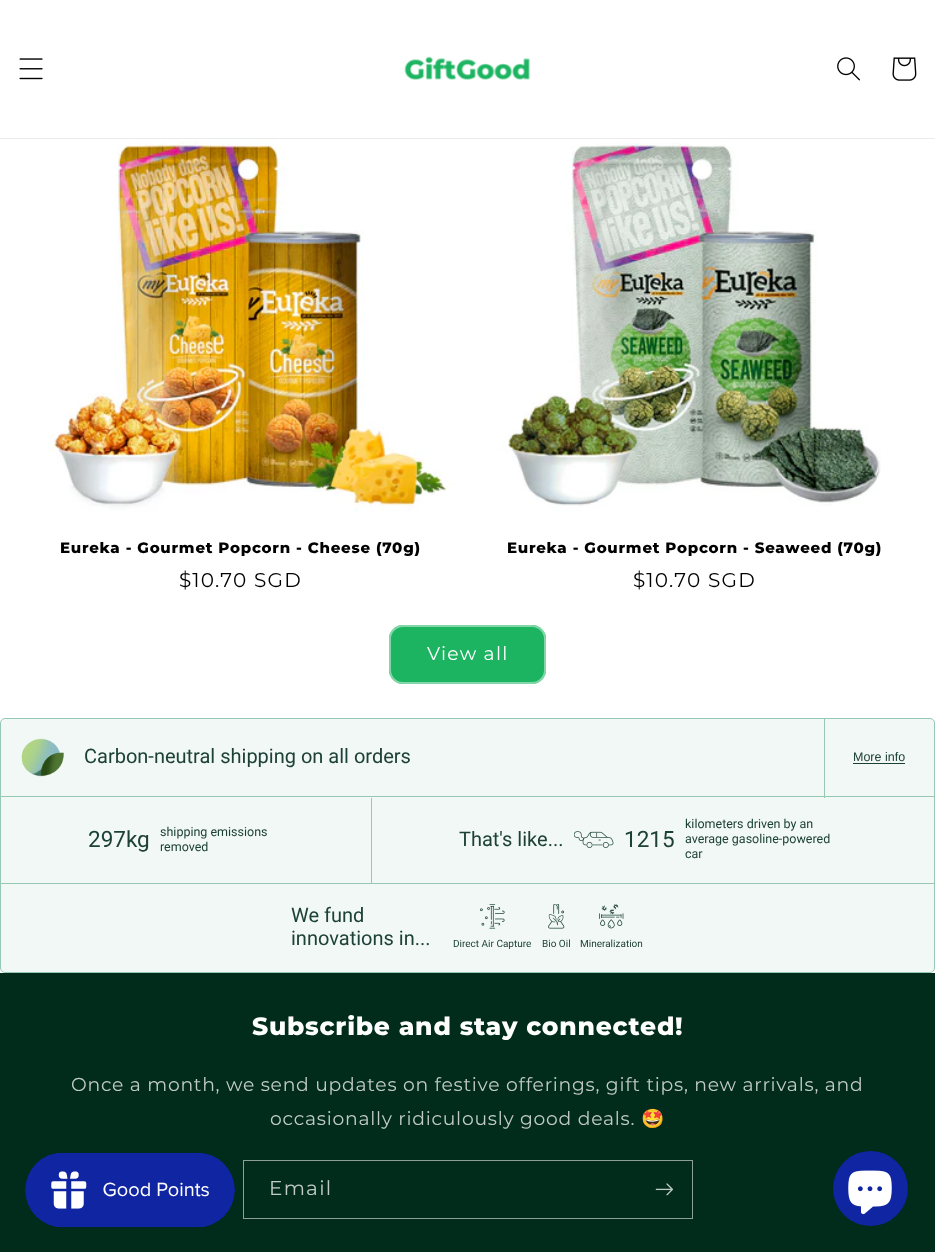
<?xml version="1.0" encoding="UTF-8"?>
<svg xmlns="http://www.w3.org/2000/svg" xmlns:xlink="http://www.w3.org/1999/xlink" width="935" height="1252">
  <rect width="100%" height="100%" fill="#ffffff" />
  <rect y="138" width="935" height="1" fill="#ebebeb" />
  <image x="19" y="58" width="24" height="22" xlink:href="image1.png" />
  <image x="404" y="56" width="126" height="24" xlink:href="image2.png" />
  <image x="837" y="57" width="23" height="24" xlink:href="image3.png" />
  <image x="892" y="57" width="25" height="24" xlink:href="image4.png" />
  <image x="48" y="139" width="405" height="373" xlink:href="image5.png" />
  <image x="473" y="139" width="408" height="382" xlink:href="image6.png" />
  <rect x="389" y="625" width="157" height="59" rx="14" fill="#1cb461" />
  <rect x="389.5" y="625.5" width="156" height="58" rx="13.5" fill="none" stroke="#1cb461" />
  <rect x="390" y="626" width="155" height="57" rx="13" fill="none" stroke="#ffffff" stroke-opacity="0.45" stroke-width="2" />
  <rect x="0.5" y="718.5" width="934" height="254" rx="4.5" fill="#f1f8f5" stroke="#95c9b4" />
  <rect x="824" y="719" width="1" height="79" fill="#95c9b4" />
  <rect x="1" y="796" width="933" height="1" fill="#95c9b4" />
  <image x="21" y="738" width="43" height="39" xlink:href="image7.png" />
  <rect x="853" y="763" width="52" height="1" fill="#1d4136" />
  <rect x="371" y="798" width="1" height="86" fill="#95c9b4" />
  <rect x="1" y="883" width="933" height="1" fill="#95c9b4" />
  <image x="574" y="831" width="40" height="17" xlink:href="image8.png" />
  <image x="480" y="904" width="25" height="25" xlink:href="image9.png" />
  <image x="548" y="904" width="17" height="25" xlink:href="image10.png" />
  <image x="599" y="904" width="25" height="25" xlink:href="image11.png" />
  <rect y="973" width="935" height="279" fill="#012b1b" />
  <rect x="243.5" y="1160.5" width="449" height="58" fill="none" stroke="#8da098" />
  <image x="655" y="1183" width="18" height="13" xlink:href="image12.png" />
  <circle cx="870.5" cy="1188.5" r="37.5" fill="#1025a1" />
  <image x="848" y="1170" width="44" height="45" xlink:href="image13.png" />
  <image x="25" y="1152" width="210" height="76" xlink:href="image14.png" />
  <text x="60" y="553" style="font-family: Montserrat; font-size: 15px; font-weight: 800; letter-spacing: 0.75px; fill: #000000">Eureka - Gourmet Popcorn - Cheese (70g)</text>
  <text x="179" y="587" style="font-family: Montserrat; font-size: 20px; letter-spacing: 1.25px; fill: #000000">$10.70 SGD</text>
  <text x="507" y="553" style="font-family: Montserrat; font-size: 15px; font-weight: 800; letter-spacing: 0.75px; fill: #000000">Eureka - Gourmet Popcorn - Seaweed (70g)</text>
  <text x="633" y="587" style="font-family: Montserrat; font-size: 20px; letter-spacing: 1.25px; fill: #000000">$10.70 SGD</text>
  <text x="427" y="660" style="font-family: Montserrat; font-size: 18.75px; letter-spacing: 1.25px; fill: #ffffff">View all</text>
  <text x="84" y="763" style="font-family: Roboto; font-size: 20px; fill: #1d4136">Carbon-neutral shipping on all orders</text>
  <text x="853" y="761" style="font-family: Liberation Sans; font-size: 12.5px; fill: #1d4136">More info</text>
  <text x="88" y="847" style="font-family: Roboto; font-size: 22.5px; fill: #1d4136">297kg</text>
  <text x="160" y="836" style="font-family: Roboto; font-size: 12.5px; fill: #1d4136">shipping emissions</text>
  <text x="160" y="851" style="font-family: Roboto; font-size: 12.5px; fill: #1d4136">removed</text>
  <text x="459" y="846" style="font-family: Roboto; font-size: 20px; fill: #1d4136">That's like...</text>
  <text x="624" y="847" style="font-family: Roboto; font-size: 22.5px; fill: #1d4136">1215</text>
  <text x="685" y="828" style="font-family: Roboto; font-size: 12.5px; fill: #1d4136">kilometers driven by an</text>
  <text x="685" y="843" style="font-family: Roboto; font-size: 12.5px; fill: #1d4136">average gasoline-powered</text>
  <text x="685" y="858" style="font-family: Roboto; font-size: 12.5px; fill: #1d4136">car</text>
  <text x="291" y="922" style="font-family: Roboto; font-size: 20px; fill: #1d4136">We fund</text>
  <text x="291" y="945" style="font-family: Roboto; font-size: 20px; fill: #1d4136">innovations in...</text>
  <text x="453" y="947" style="font-family: Roboto; font-size: 10px; fill: #1d4136">Direct Air Capture</text>
  <text x="542" y="947" style="font-family: Roboto; font-size: 10px; fill: #1d4136">Bio Oil</text>
  <text x="580" y="947" style="font-family: Roboto; font-size: 10px; fill: #1d4136">Mineralization</text>
  <text x="252" y="1035" style="font-family: Montserrat; font-size: 25px; font-weight: 800; letter-spacing: 0.75px; fill: #ffffff">Subscribe and stay connected!</text>
  <text x="71" y="1091" style="font-family: Montserrat; font-size: 18.75px; letter-spacing: 0.75px; fill: #c0cac6">Once a month, we send updates on festive offerings, gift tips, new arrivals, and</text>
  <text x="270" y="1125" style="font-family: Montserrat; font-size: 18.75px; letter-spacing: 0.75px; fill: #c0cac6">occasionally ridiculously good deals.</text>
  <text x="641" y="1125" style="font-family: Noto Color Emoji; font-size: 18.75px; letter-spacing: 0.75px; fill: #c0cac6">🤩</text>
  <text x="269" y="1195" style="font-family: Montserrat; font-size: 20px; letter-spacing: 1.25px; fill: #c0cac6">Email</text>
</svg>
